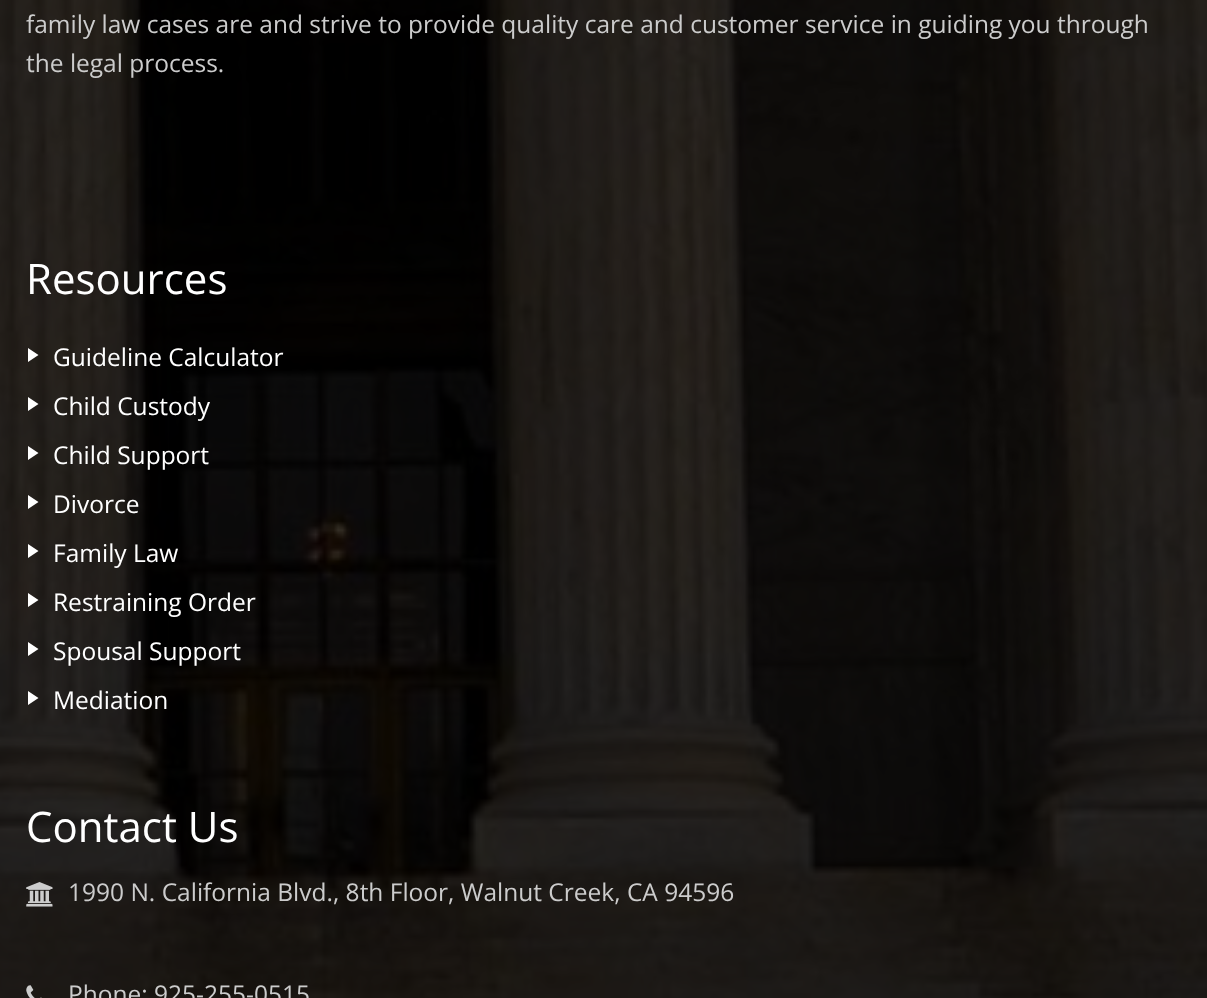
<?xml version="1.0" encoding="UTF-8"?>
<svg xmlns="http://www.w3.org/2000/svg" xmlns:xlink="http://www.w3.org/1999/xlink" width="1207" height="998">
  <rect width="100%" height="100%" fill="#ffffff" />
  <image x="0" y="0" width="1207" height="998" xlink:href="image1.png" />
  <path d="M 28 362 v -14 l 10.5 7 z m 0 49 v -14 l 10.5 7 z" fill="#ffffff" />
  <path d="M 28 460 v -14 l 10.5 7 z m 0 49 v -14 l 10.5 7 z" fill="#ffffff" />
  <path d="M 28 558 v -14 l 10.5 7 z m 0 49 v -14 l 10.5 7 z" fill="#ffffff" />
  <path d="M 28 656 v -14 l 10.5 7 z m 0 49 v -14 l 10.5 7 z" fill="#ffffff" />
  <image x="26" y="882" width="27" height="25" xlink:href="image2.png" />
  <image x="26" y="985" width="16" height="13" xlink:href="image3.png" />
  <text x="26" y="33" style="font-family: Open Sans; font-size: 24.5px; fill: #cccccc">family law cases are and strive to provide quality care and customer service in guiding you through</text>
  <text x="26" y="72" style="font-family: Open Sans; font-size: 24.5px; fill: #cccccc">the legal process.</text>
  <text x="26" y="294" style="font-family: Open Sans; font-size: 42px; fill: #ffffff">Resources</text>
  <text x="53" y="366" style="font-family: Open Sans; font-size: 24.5px; fill: #ffffff">Guideline Calculator</text>
  <text x="53" y="415" style="font-family: Open Sans; font-size: 24.5px; fill: #ffffff">Child Custody</text>
  <text x="53" y="464" style="font-family: Open Sans; font-size: 24.5px; fill: #ffffff">Child Support</text>
  <text x="53" y="513" style="font-family: Open Sans; font-size: 24.5px; fill: #ffffff">Divorce</text>
  <text x="53" y="562" style="font-family: Open Sans; font-size: 24.5px; fill: #ffffff">Family Law</text>
  <text x="53" y="611" style="font-family: Open Sans; font-size: 24.5px; fill: #ffffff">Restraining Order</text>
  <text x="53" y="660" style="font-family: Open Sans; font-size: 24.5px; fill: #ffffff">Spousal Support</text>
  <text x="53" y="709" style="font-family: Open Sans; font-size: 24.5px; fill: #ffffff">Mediation</text>
  <text x="26" y="842" style="font-family: Open Sans; font-size: 42px; fill: #ffffff">Contact Us</text>
  <text x="68" y="901" style="font-family: Open Sans; font-size: 24.5px; fill: #cccccc">1990 N. California Blvd., 8th Floor, Walnut Creek, CA 94596</text>
  <text x="68" y="1003" style="font-family: Open Sans; font-size: 24.5px; fill: #cccccc">Phone: 925-255-0515</text>
</svg>
